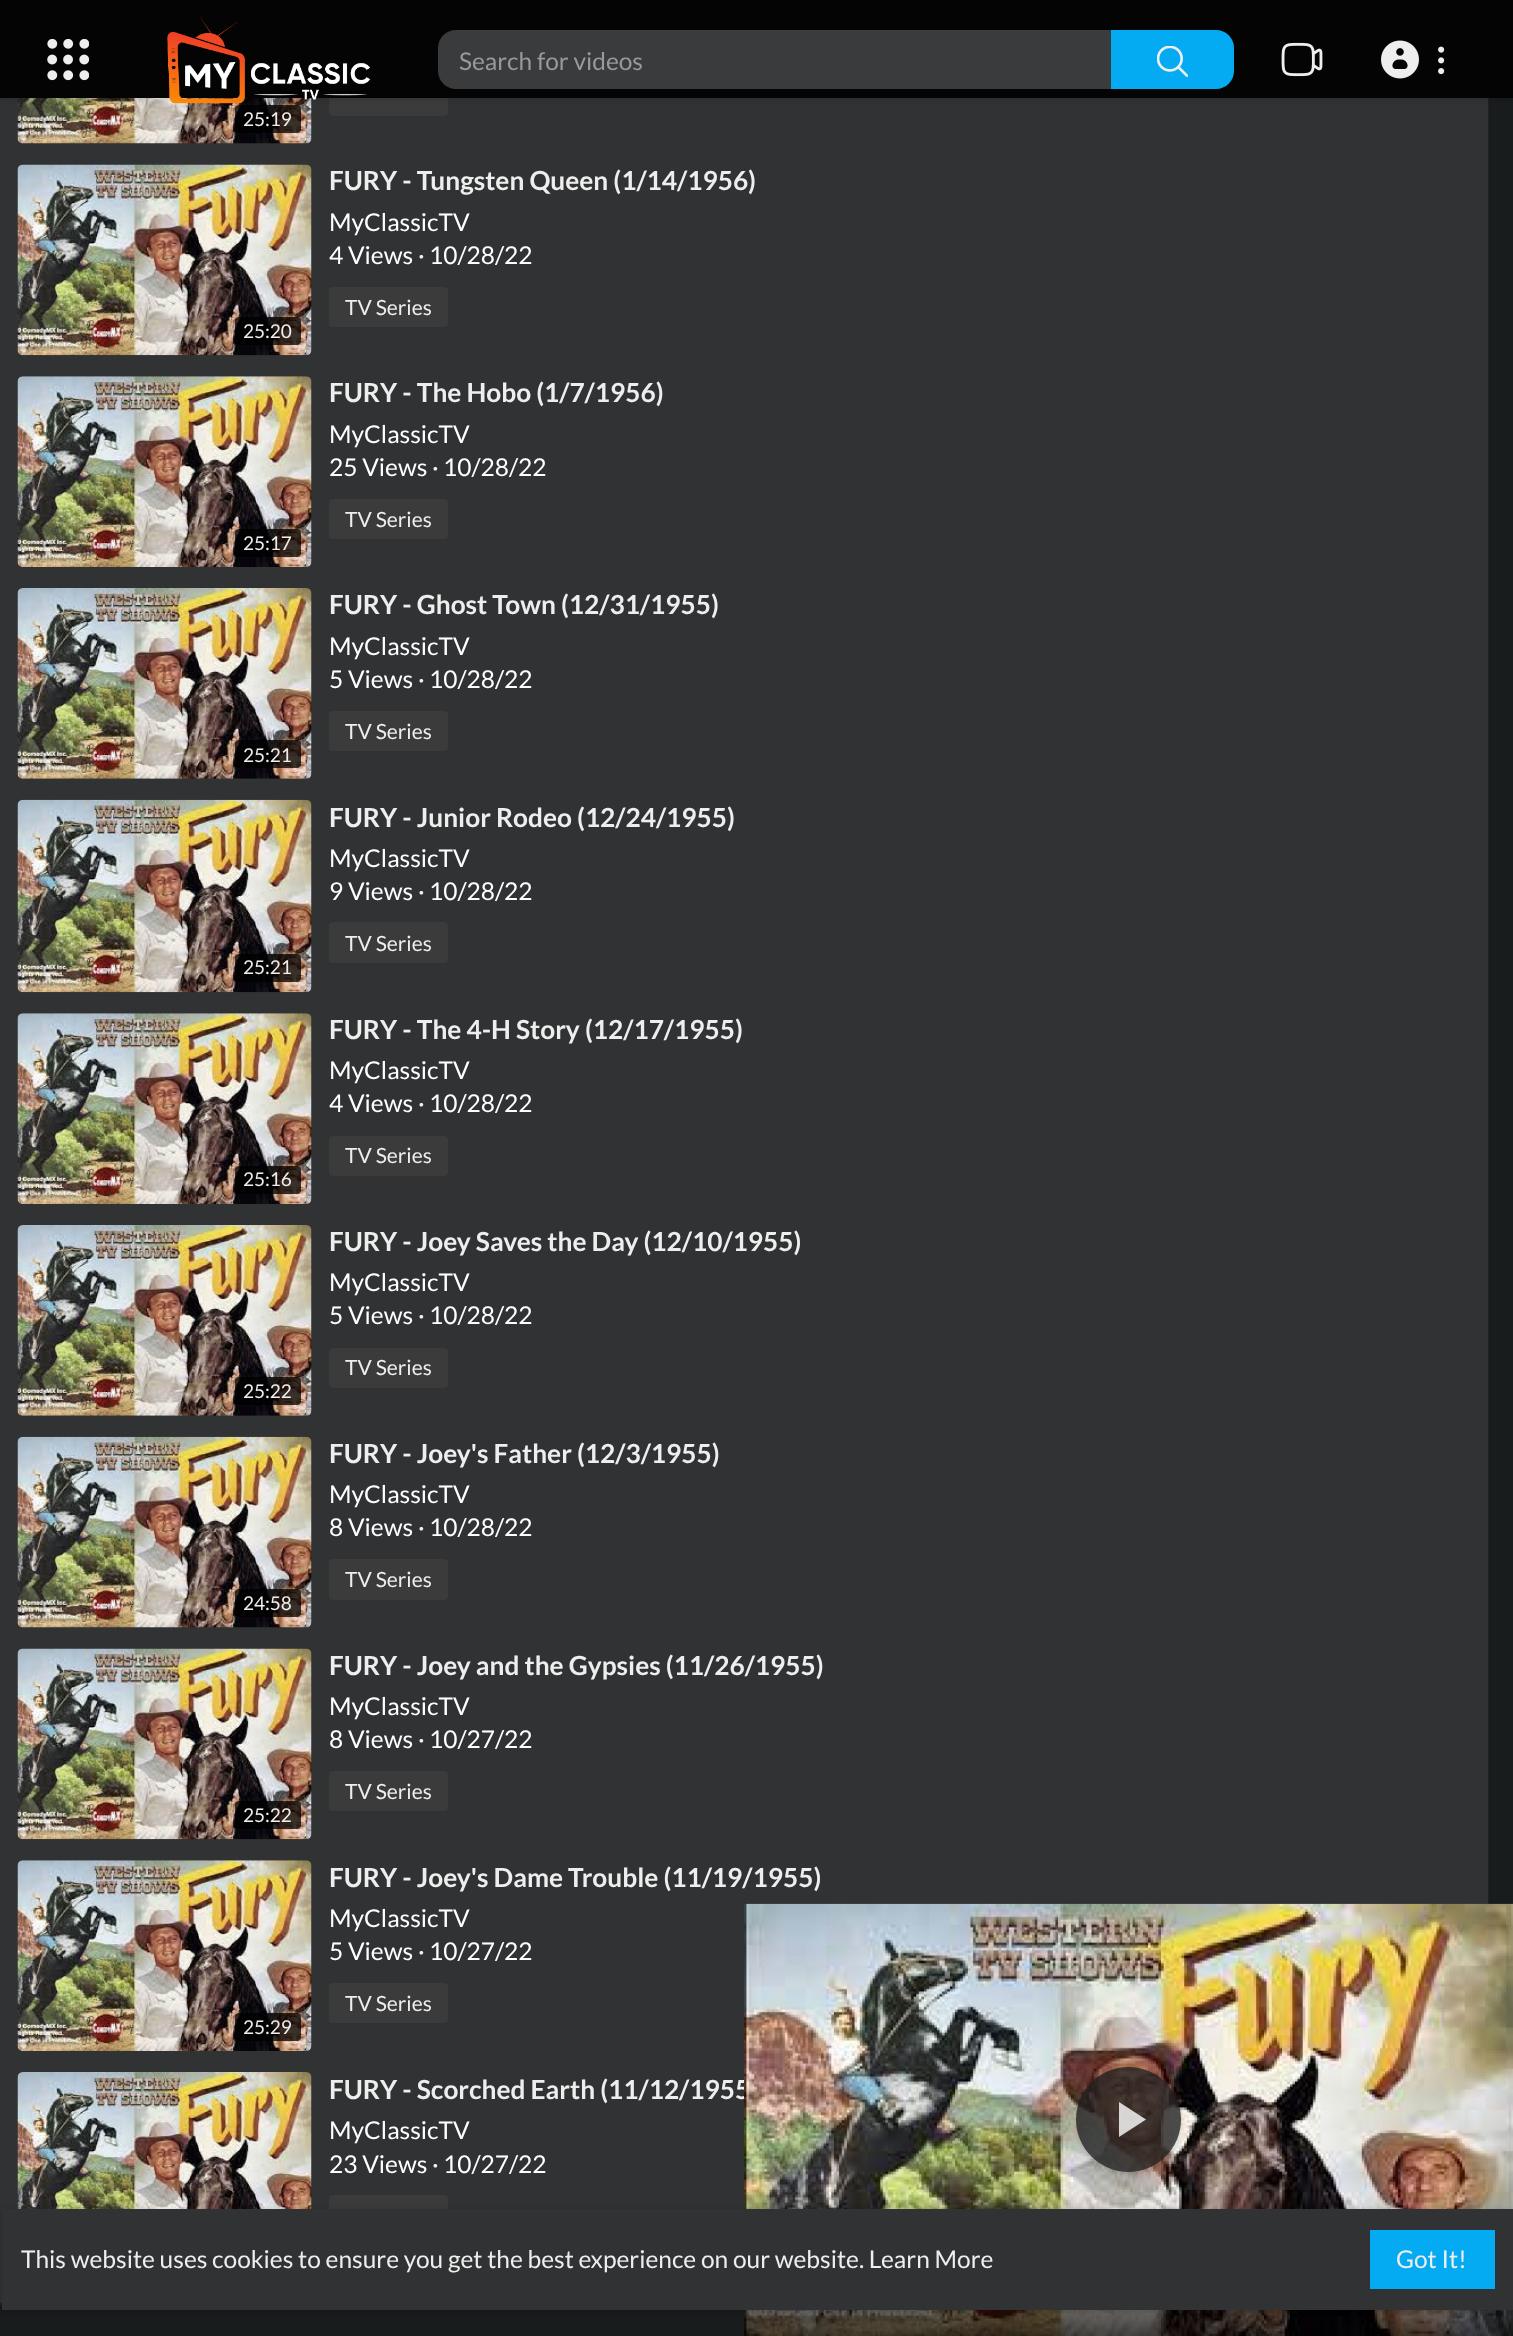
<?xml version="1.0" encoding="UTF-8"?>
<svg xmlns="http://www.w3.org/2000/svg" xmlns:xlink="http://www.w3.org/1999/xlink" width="1513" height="2336">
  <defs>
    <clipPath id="clip1"><path d="M 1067 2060 h 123 v 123 h -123 z m 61.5 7 c 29 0 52.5 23.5 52.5 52.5 c 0 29 -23.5 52.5 -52.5 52.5 c -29 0 -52.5 -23.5 -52.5 -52.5 c 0 -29 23.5 -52.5 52.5 -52.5 z" clip-rule="evenodd" /></clipPath>
  </defs>
  <rect width="100%" height="100%" fill="#191c1d" />
  <rect x="-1" y="-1" width="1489" height="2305" fill="none" stroke="#212121" stroke-width="2" />
  <rect y="98" width="1488" height="2205" fill="#303233" />
  <rect x="329" y="75" width="119" height="41" rx="4" fill="#3b3b3b" />
  <image x="17" y="98" width="295" height="46" xlink:href="image7.png" />
  <rect x="235" y="105" width="66" height="28" rx="4" fill="#000000" fill-opacity="0.75" />
  <rect y="2" width="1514" height="98" fill="#000000" fill-opacity="0.1" filter="blur(2px)" />
  <rect width="1513" height="98" fill="#050404" />
  <image x="47" y="39" width="42" height="42" xlink:href="image1.png" />
  <image x="167" y="17" width="204" height="87" xlink:href="image2.png" />
  <path d="M 456 30 h 655 v 59 h -655 c -10 0 -18 -8 -18 -18 v -23 c 0 -10 8 -18 18 -18 z" fill="#3a3b3c" />
  <path d="M 1111 30 h 105 c 10 0 18 8 18 18 v 23 c 0 10 -8 18 -18 18 h -105 z" fill="#04abf2" />
  <image x="1157" y="46" width="31" height="31" xlink:href="image3.png" />
  <image x="1281" y="42" width="42" height="35" xlink:href="image4.png" />
  <image x="1381" y="40" width="38" height="39" xlink:href="image5.png" />
  <image x="1438" y="46" width="7" height="29" xlink:href="image6.png" />
  <rect x="329" y="287" width="119" height="40" rx="4" fill="#3b3b3b" />
  <image x="17" y="164" width="295" height="192" xlink:href="image8.png" />
  <rect x="235" y="317" width="66" height="28" rx="4" fill="#000000" fill-opacity="0.75" />
  <rect x="329" y="499" width="119" height="40" rx="4" fill="#3b3b3b" />
  <image x="17" y="376" width="295" height="191" xlink:href="image9.png" />
  <rect x="235" y="529" width="66" height="28" rx="4" fill="#000000" fill-opacity="0.75" />
  <rect x="329" y="711" width="119" height="40" rx="4" fill="#3b3b3b" />
  <image x="17" y="588" width="295" height="191" xlink:href="image10.png" />
  <rect x="235" y="740" width="66" height="28" rx="4" fill="#000000" fill-opacity="0.75" />
  <rect x="329" y="922" width="119" height="41" rx="4" fill="#3b3b3b" />
  <image x="17" y="799" width="295" height="194" xlink:href="image11.png" />
  <rect x="235" y="954" width="66" height="28" rx="4" fill="#000000" fill-opacity="0.75" />
  <rect x="329" y="1136" width="119" height="40" rx="4" fill="#3b3b3b" />
  <image x="17" y="1013" width="295" height="191" xlink:href="image9.png" />
  <rect x="235" y="1166" width="66" height="28" rx="4" fill="#000000" fill-opacity="0.75" />
  <rect x="329" y="1348" width="119" height="40" rx="4" fill="#3b3b3b" />
  <image x="17" y="1225" width="295" height="191" xlink:href="image10.png" />
  <rect x="235" y="1377" width="66" height="28" rx="4" fill="#000000" fill-opacity="0.75" />
  <rect x="329" y="1559" width="119" height="41" rx="4" fill="#3b3b3b" />
  <image x="17" y="1436" width="295" height="192" xlink:href="image12.png" />
  <rect x="235" y="1589" width="66" height="28" rx="4" fill="#000000" fill-opacity="0.75" />
  <rect x="329" y="1771" width="119" height="40" rx="4" fill="#3b3b3b" />
  <image x="17" y="1648" width="295" height="192" xlink:href="image8.png" />
  <rect x="235" y="1801" width="66" height="28" rx="4" fill="#000000" fill-opacity="0.75" />
  <rect x="329" y="1983" width="119" height="40" rx="4" fill="#3b3b3b" />
  <image x="17" y="1860" width="295" height="191" xlink:href="image9.png" />
  <rect x="235" y="2013" width="66" height="28" rx="4" fill="#000000" fill-opacity="0.75" />
  <image x="17" y="2072" width="295" height="137" xlink:href="image13.png" />
  <rect x="329" y="2195" width="119" height="40" rx="4" fill="#3b3b3b" />
  <image x="744" y="1904" width="769" height="1" xlink:href="image15.png" />
  <text x="459" y="70" style="font-family: Lato; font-size: 24.5px; fill: #999999">Search for videos</text>
  <text x="243" y="126" style="font-family: Lato; font-size: 19px; fill: #eeeeee">25:19</text>
  <text x="329" y="190" style="font-family: Lato; font-size: 26.25px; font-weight: bold; fill: #eeeeee">FURY - Tungsten Queen (1/14/1956)</text>
  <text x="329" y="231" style="font-family: Lato; font-size: 24.5px; fill: #ffffff">MyClassicTV</text>
  <text x="329" y="264" style="font-family: Lato; font-size: 24.5px; fill: #ffffff">4 Views</text>
  <text x="418" y="264" style="font-family: Lato; font-size: 24.5px; fill: #eeeeee">·</text>
  <text x="429" y="264" style="font-family: Lato; font-size: 24.5px; fill: #ffffff">10/28/22</text>
  <text x="345" y="315" style="font-family: Lato; font-size: 21px; fill: #eeeeee">TV Series</text>
  <text x="243" y="338" style="font-family: Lato; font-size: 19px; fill: #eeeeee">25:20</text>
  <text x="329" y="402" style="font-family: Lato; font-size: 26.25px; font-weight: bold; fill: #eeeeee">FURY - The Hobo (1/7/1956)</text>
  <text x="329" y="443" style="font-family: Lato; font-size: 24.5px; fill: #ffffff">MyClassicTV</text>
  <text x="329" y="476" style="font-family: Lato; font-size: 24.5px; fill: #ffffff">25 Views</text>
  <text x="432" y="476" style="font-family: Lato; font-size: 24.5px; fill: #eeeeee">·</text>
  <text x="443" y="476" style="font-family: Lato; font-size: 24.5px; fill: #ffffff">10/28/22</text>
  <text x="345" y="527" style="font-family: Lato; font-size: 21px; fill: #eeeeee">TV Series</text>
  <text x="243" y="550" style="font-family: Lato; font-size: 19px; fill: #eeeeee">25:17</text>
  <text x="329" y="614" style="font-family: Lato; font-size: 26.25px; font-weight: bold; fill: #eeeeee">FURY - Ghost Town (12/31/1955)</text>
  <text x="329" y="655" style="font-family: Lato; font-size: 24.5px; fill: #ffffff">MyClassicTV</text>
  <text x="329" y="688" style="font-family: Lato; font-size: 24.5px; fill: #ffffff">5 Views</text>
  <text x="418" y="688" style="font-family: Lato; font-size: 24.5px; fill: #eeeeee">·</text>
  <text x="429" y="688" style="font-family: Lato; font-size: 24.5px; fill: #ffffff">10/28/22</text>
  <text x="345" y="739" style="font-family: Lato; font-size: 21px; fill: #eeeeee">TV Series</text>
  <text x="243" y="762" style="font-family: Lato; font-size: 19px; fill: #eeeeee">25:21</text>
  <text x="329" y="827" style="font-family: Lato; font-size: 26.25px; font-weight: bold; fill: #eeeeee">FURY - Junior Rodeo (12/24/1955)</text>
  <text x="329" y="867" style="font-family: Lato; font-size: 24.5px; fill: #ffffff">MyClassicTV</text>
  <text x="329" y="900" style="font-family: Lato; font-size: 24.5px; fill: #ffffff">9 Views</text>
  <text x="418" y="900" style="font-family: Lato; font-size: 24.5px; fill: #eeeeee">·</text>
  <text x="429" y="900" style="font-family: Lato; font-size: 24.5px; fill: #ffffff">10/28/22</text>
  <text x="345" y="951" style="font-family: Lato; font-size: 21px; fill: #eeeeee">TV Series</text>
  <text x="243" y="974" style="font-family: Lato; font-size: 19px; fill: #eeeeee">25:21</text>
  <text x="329" y="1039" style="font-family: Lato; font-size: 26.25px; font-weight: bold; fill: #eeeeee">FURY - The 4-H Story (12/17/1955)</text>
  <text x="329" y="1079" style="font-family: Lato; font-size: 24.5px; fill: #ffffff">MyClassicTV</text>
  <text x="329" y="1112" style="font-family: Lato; font-size: 24.5px; fill: #ffffff">4 Views</text>
  <text x="418" y="1112" style="font-family: Lato; font-size: 24.5px; fill: #eeeeee">·</text>
  <text x="429" y="1112" style="font-family: Lato; font-size: 24.5px; fill: #ffffff">10/28/22</text>
  <text x="345" y="1163" style="font-family: Lato; font-size: 21px; fill: #eeeeee">TV Series</text>
  <text x="243" y="1186" style="font-family: Lato; font-size: 19px; fill: #eeeeee">25:16</text>
  <text x="329" y="1251" style="font-family: Lato; font-size: 26.25px; font-weight: bold; fill: #eeeeee">FURY - Joey Saves the Day (12/10/1955)</text>
  <text x="329" y="1291" style="font-family: Lato; font-size: 24.5px; fill: #ffffff">MyClassicTV</text>
  <text x="329" y="1324" style="font-family: Lato; font-size: 24.5px; fill: #ffffff">5 Views</text>
  <text x="418" y="1324" style="font-family: Lato; font-size: 24.5px; fill: #eeeeee">·</text>
  <text x="429" y="1324" style="font-family: Lato; font-size: 24.5px; fill: #ffffff">10/28/22</text>
  <text x="345" y="1375" style="font-family: Lato; font-size: 21px; fill: #eeeeee">TV Series</text>
  <text x="243" y="1398" style="font-family: Lato; font-size: 19px; fill: #eeeeee">25:22</text>
  <text x="329" y="1463" style="font-family: Lato; font-size: 26.25px; font-weight: bold; fill: #eeeeee">FURY - Joey's Father (12/3/1955)</text>
  <text x="329" y="1503" style="font-family: Lato; font-size: 24.5px; fill: #ffffff">MyClassicTV</text>
  <text x="329" y="1536" style="font-family: Lato; font-size: 24.5px; fill: #ffffff">8 Views</text>
  <text x="418" y="1536" style="font-family: Lato; font-size: 24.5px; fill: #eeeeee">·</text>
  <text x="429" y="1536" style="font-family: Lato; font-size: 24.5px; fill: #ffffff">10/28/22</text>
  <text x="345" y="1587" style="font-family: Lato; font-size: 21px; fill: #eeeeee">TV Series</text>
  <text x="243" y="1610" style="font-family: Lato; font-size: 19px; fill: #eeeeee">24:58</text>
  <text x="329" y="1675" style="font-family: Lato; font-size: 26.25px; font-weight: bold; fill: #eeeeee">FURY - Joey and the Gypsies (11/26/1955)</text>
  <text x="329" y="1715" style="font-family: Lato; font-size: 24.5px; fill: #ffffff">MyClassicTV</text>
  <text x="329" y="1748" style="font-family: Lato; font-size: 24.5px; fill: #ffffff">8 Views</text>
  <text x="418" y="1748" style="font-family: Lato; font-size: 24.5px; fill: #eeeeee">·</text>
  <text x="429" y="1748" style="font-family: Lato; font-size: 24.5px; fill: #ffffff">10/27/22</text>
  <text x="345" y="1799" style="font-family: Lato; font-size: 21px; fill: #eeeeee">TV Series</text>
  <text x="243" y="1822" style="font-family: Lato; font-size: 19px; fill: #eeeeee">25:22</text>
  <text x="329" y="1887" style="font-family: Lato; font-size: 26.25px; font-weight: bold; fill: #eeeeee">FURY - Joey's Dame Trouble (11/19/1955)</text>
  <text x="329" y="1927" style="font-family: Lato; font-size: 24.5px; fill: #ffffff">MyClassicTV</text>
  <text x="329" y="1960" style="font-family: Lato; font-size: 24.5px; fill: #ffffff">5 Views</text>
  <text x="418" y="1960" style="font-family: Lato; font-size: 24.5px; fill: #eeeeee">·</text>
  <text x="429" y="1960" style="font-family: Lato; font-size: 24.5px; fill: #ffffff">10/27/22</text>
  <text x="345" y="2011" style="font-family: Lato; font-size: 21px; fill: #eeeeee">TV Series</text>
  <text x="243" y="2034" style="font-family: Lato; font-size: 19px; fill: #eeeeee">25:29</text>
  <text x="329" y="2099" style="font-family: Lato; font-size: 26.25px; font-weight: bold; fill: #eeeeee">FURY - Scorched Earth (11/12/1955</text>
  <text x="329" y="2139" style="font-family: Lato; font-size: 24.5px; fill: #ffffff">MyClassicTV</text>
  <text x="329" y="2173" style="font-family: Lato; font-size: 24.5px; fill: #ffffff">23 Views</text>
  <text x="432" y="2173" style="font-family: Lato; font-size: 24.5px; fill: #eeeeee">·</text>
  <text x="443" y="2173" style="font-family: Lato; font-size: 24.5px; fill: #ffffff">10/27/22</text>
  <image x="744" y="1903" width="769" height="433" xlink:href="image14.png" />
  <g clip-path="url(#clip1)">
    <rect x="1076" y="2069" width="105" height="105" rx="52.5" fill="#000000" fill-opacity="0.16" filter="blur(2.5px)" />
  </g>
  <circle cx="1128.5" cy="2119.5" r="52.5" fill="#212121" fill-opacity="0.8" />
  <path d="M 1119 2102 v 35 l 27 -17.5 z" fill="#ffffff" fill-opacity="0.8" />
  <rect x="2" y="2210" width="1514" height="102" fill="#000000" fill-opacity="0.06" filter="blur(2px)" />
  <rect x="2" y="2210" width="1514" height="102" fill="#000000" fill-opacity="0.1" filter="blur(2.5px)" />
  <rect x="2" y="2209" width="1511" height="101" fill="#303233" />
  <text x="21" y="2268" style="font-family: Lato; font-size: 24.5px; fill: #eeeeee">This website uses cookies to ensure you get the best experience on our website. Learn More</text>
  <rect x="1370" y="2230" width="125" height="59" fill="#04abf2" />
  <text x="1396" y="2268" style="font-family: Lato; font-size: 24.5px; fill: #eeeeee">Got It!</text>
</svg>
